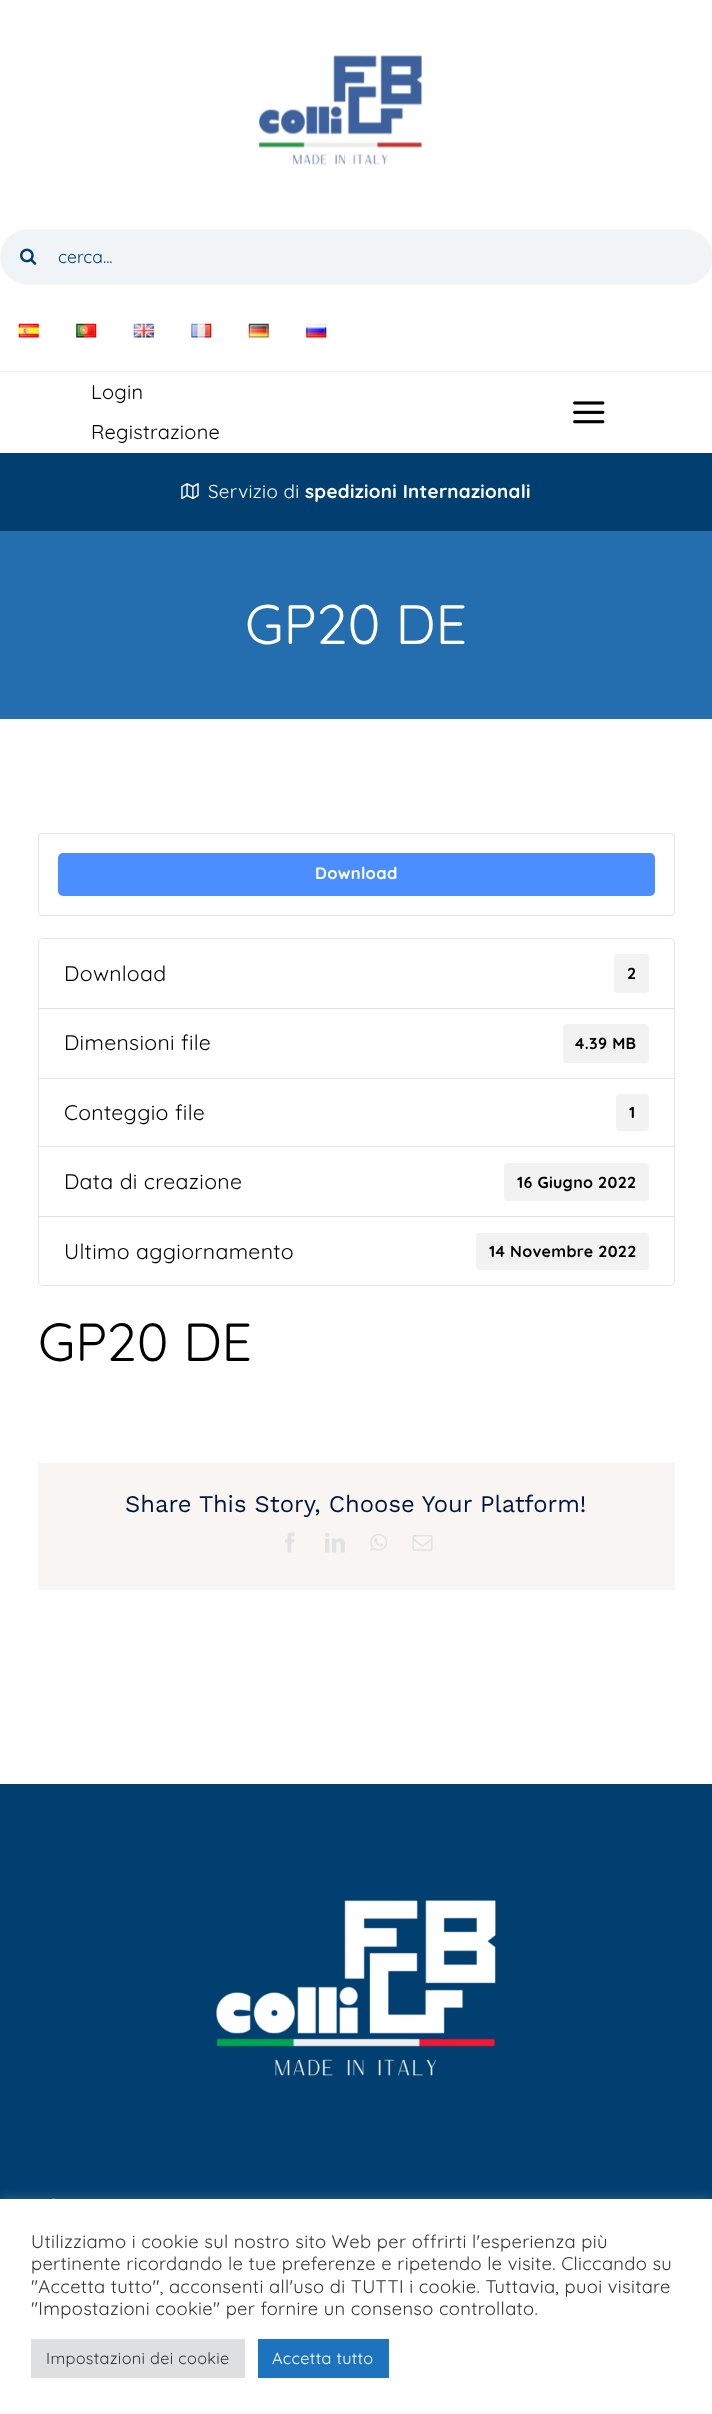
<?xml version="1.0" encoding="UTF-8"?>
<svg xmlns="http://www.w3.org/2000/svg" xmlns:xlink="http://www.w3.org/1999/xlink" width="712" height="2414">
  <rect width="100%" height="100%" fill="#ffffff" />
  <rect y="371" width="712" height="1" fill="#f2f2f2" />
  <image x="258" y="55" width="164" height="110" xlink:href="image1.png" />
  <rect x="0.5" y="229.5" width="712" height="55" rx="27.5" fill="#f1f4f7" stroke="#f8f5f2" />
  <image x="20" y="248" width="17" height="17" xlink:href="image2.png" />
  <image x="18" y="323" width="21" height="15" xlink:href="image3.png" />
  <image x="76" y="323" width="21" height="15" xlink:href="image4.png" />
  <image x="133" y="323" width="21" height="15" xlink:href="image5.png" />
  <image x="191" y="323" width="21" height="15" xlink:href="image6.png" />
  <image x="248" y="323" width="21" height="15" xlink:href="image7.png" />
  <image x="306" y="323" width="21" height="15" xlink:href="image8.png" />
  <image x="573" y="401" width="32" height="23" xlink:href="image9.png" />
  <rect y="453" width="712" height="78" fill="#003f70" />
  <image x="181" y="483" width="18" height="17" xlink:href="image10.png" />
  <rect y="531" width="712" height="188" fill="#246eaf" />
  <rect x="38.5" y="833.5" width="636" height="82" rx="3.5" fill="none" stroke="#e5e5e5" />
  <rect x="58" y="853" width="597" height="43" rx="5" fill="#4a8eff" />
  <path d="M 43 938.5 h 627 c 2.5 0 4.5 2 4.5 4.5 v 65.5 h -636 v -65.5 c 0 -2.5 2 -4.5 4.5 -4.5 z" fill="none" stroke="#e5e5e5" />
  <rect x="614" y="954" width="35" height="39" rx="4" fill="#f2f2f2" />
  <rect x="38.5" y="1008.5" width="636" height="70" fill="none" stroke="#e5e5e5" />
  <rect x="563" y="1024" width="86" height="39" rx="4" fill="#f2f2f2" />
  <rect x="38.5" y="1078.5" width="636" height="69" fill="none" stroke="#e5e5e5" />
  <rect x="616" y="1094" width="33" height="37" rx="4" fill="#f2f2f2" />
  <rect x="39" y="1147" width="635" height="1" fill="#ffffff" />
  <rect x="38.5" y="1146.5" width="636" height="71" fill="none" stroke="#e5e5e5" />
  <rect x="504" y="1163" width="145" height="38" rx="4" fill="#f2f2f2" />
  <path d="M 38.5 1216.5 h 636 v 64.5 c 0 2.5 -2 4.5 -4.5 4.5 h -627 c -2.5 0 -4.5 -2 -4.5 -4.5 z" fill="#ffffff" stroke="#e5e5e5" />
  <rect x="476" y="1233" width="173" height="37" rx="4" fill="#f2f2f2" />
  <rect x="38" y="1463" width="637" height="127" fill="#f8f5f3" />
  <image x="285" y="1532" width="10" height="21" xlink:href="image11.png" />
  <image x="325" y="1532" width="20" height="21" xlink:href="image12.png" />
  <image x="370" y="1534" width="17" height="17" xlink:href="image13.png" />
  <image x="412" y="1535" width="21" height="16" xlink:href="image14.png" />
  <rect y="1784" width="712" height="415" fill="#003f70" />
  <image x="216" y="1900" width="280" height="176" xlink:href="image15.png" />
  <image x="52" y="2198" width="3" height="1" xlink:href="image16.png" />
  <rect y="2198" width="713" height="216" fill="#acabab" fill-opacity="0.3" filter="blur(6px)" />
  <rect y="2199" width="712" height="215" fill="#ffffff" />
  <rect x="31" y="2339" width="214" height="39" fill="#dedfe0" />
  <rect x="258" y="2339" width="131" height="39" fill="#1e73be" />
  <text x="58" y="263" style="font-family: Quicksand; font-size: 17.5px; fill: #003f70">cerca...</text>
  <text x="91" y="399" style="font-family: Quicksand; font-size: 20px; letter-spacing: 0.25px; fill: #000000">Login</text>
  <text x="91" y="439" style="font-family: Quicksand; font-size: 20px; letter-spacing: 0.25px; fill: #000000">Registrazione</text>
  <text x="208" y="498" style="font-family: Quicksand; font-size: 18.75px; letter-spacing: 0.32px; fill: #ffffff">Servizio di</text>
  <text x="305" y="498" style="font-family: Quicksand; font-size: 18.75px; font-weight: bold; letter-spacing: 0.32px; fill: #ffffff">spedizioni Internazionali</text>
  <text x="245" y="644" style="font-family: Quicksand; font-size: 55.5px; fill: #ffffff">GP20 DE</text>
  <text x="315" y="879" style="font-family: Quicksand; font-size: 16.5px; font-weight: bold; letter-spacing: 0.32px; fill: #ffffff">Download</text>
  <text x="64" y="981" style="font-family: Quicksand; font-size: 21.25px; letter-spacing: 0.32px; fill: #000000">Download</text>
  <text x="627" y="979" style="font-family: Quicksand; font-size: 16px; font-weight: bold; letter-spacing: 0.32px; fill: #000000">2</text>
  <text x="64" y="1050" style="font-family: Quicksand; font-size: 21.25px; letter-spacing: 0.32px; fill: #000000">Dimensioni file</text>
  <text x="575" y="1049" style="font-family: Quicksand; font-size: 16px; font-weight: bold; letter-spacing: 0.32px; fill: #000000">4.39 MB</text>
  <text x="64" y="1120" style="font-family: Quicksand; font-size: 21.25px; letter-spacing: 0.32px; fill: #000000">Conteggio file</text>
  <text x="629" y="1118" style="font-family: Quicksand; font-size: 16px; font-weight: bold; letter-spacing: 0.32px; fill: #000000">1</text>
  <text x="64" y="1189" style="font-family: Quicksand; font-size: 21.25px; letter-spacing: 0.32px; fill: #000000">Data di creazione</text>
  <text x="517" y="1188" style="font-family: Quicksand; font-size: 16px; font-weight: bold; letter-spacing: 0.32px; fill: #000000">16 Giugno 2022</text>
  <text x="64" y="1259" style="font-family: Quicksand; font-size: 21.25px; letter-spacing: 0.32px; fill: #000000">Ultimo aggiornamento</text>
  <text x="489" y="1257" style="font-family: Quicksand; font-size: 16px; font-weight: bold; letter-spacing: 0.32px; fill: #000000">14 Novembre 2022</text>
  <text x="38" y="1361" style="font-family: Quicksand; font-size: 53.5px; fill: #000000">GP20 DE</text>
  <text x="125" y="1512" style="font-family: Work Sans; font-size: 23.8px; fill: #00173d">Share This Story, Choose Your Platform!</text>
  <text x="31" y="2248" style="font-family: Quicksand; font-size: 18.35px; letter-spacing: 0.32px; fill: #333333">Utilizziamo i cookie sul nostro sito Web per offrirti l'esperienza più</text>
  <text x="31" y="2270" style="font-family: Quicksand; font-size: 18.35px; letter-spacing: 0.32px; fill: #333333">pertinente ricordando le tue preferenze e ripetendo le visite. Cliccando su</text>
  <text x="31" y="2293" style="font-family: Quicksand; font-size: 18.35px; letter-spacing: 0.32px; fill: #333333">"Accetta tutto", acconsenti all'uso di TUTTI i cookie. Tuttavia, puoi visitare</text>
  <text x="31" y="2315" style="font-family: Quicksand; font-size: 18.35px; letter-spacing: 0.32px; fill: #333333">"Impostazioni cookie" per fornire un consenso controllato.</text>
  <text x="46" y="2364" style="font-family: Quicksand; font-size: 16.25px; letter-spacing: 0.32px; fill: #333333">Impostazioni dei cookie</text>
  <text x="272" y="2364" style="font-family: Quicksand; font-size: 16.25px; letter-spacing: 0.32px; fill: #ffffff">Accetta tutto</text>
</svg>
